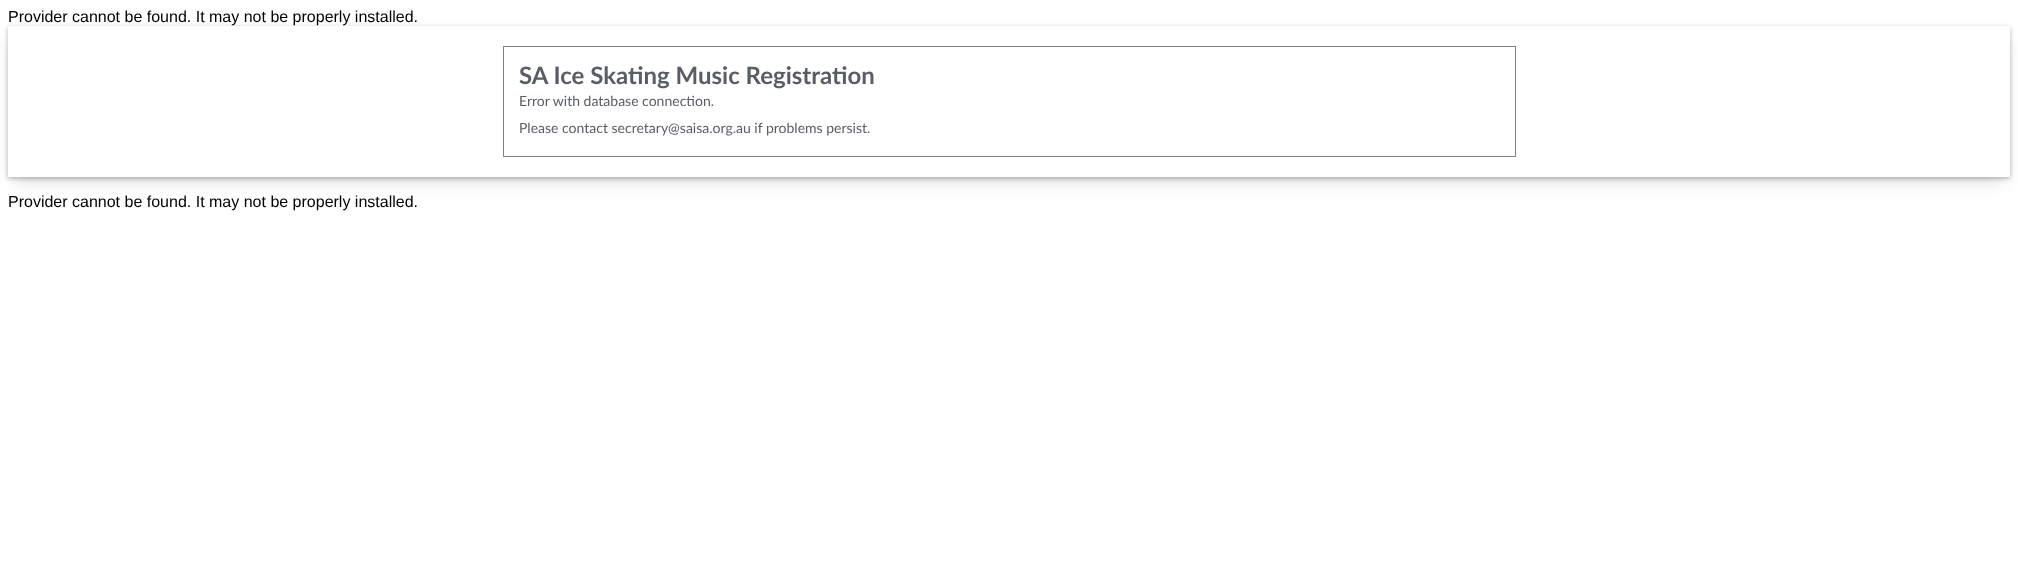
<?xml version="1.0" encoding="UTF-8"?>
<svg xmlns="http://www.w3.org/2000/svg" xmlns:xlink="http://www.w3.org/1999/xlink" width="2018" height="573">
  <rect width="100%" height="100%" fill="#ffffff" />
  <rect x="8" y="27" width="2002" height="151" rx="1" fill="#000000" fill-opacity="0.12" filter="blur(2.5px)" />
  <rect x="15" y="41" width="1988" height="137" fill="#000000" fill-opacity="0.19" filter="blur(9.5px)" />
  <rect x="8" y="28" width="2002" height="151" rx="1" fill="#000000" fill-opacity="0.15" filter="blur(2px)" />
  <rect x="8" y="26" width="2002" height="151" rx="1" fill="#ffffff" />
  <rect x="503.5" y="46.5" width="1012" height="110" fill="none" stroke="#808080" />
  <text x="8" y="22" style="font-family: Liberation Sans; font-size: 16px; fill: #000000">Provider cannot be found. It may not be properly installed.</text>
  <text x="519" y="84" style="font-family: Lato; font-size: 24px; font-weight: bold; fill: #595d64">SA Ice Skating Music Registration</text>
  <text x="519" y="106" style="font-family: Lato; font-size: 14px; fill: #595d64">Error with database connection.</text>
  <text x="519" y="133" style="font-family: Lato; font-size: 14px; fill: #595d64">Please contact secretary@saisa.org.au if problems persist.</text>
  <text x="8" y="207" style="font-family: Liberation Sans; font-size: 16px; fill: #000000">Provider cannot be found. It may not be properly installed.</text>
</svg>
